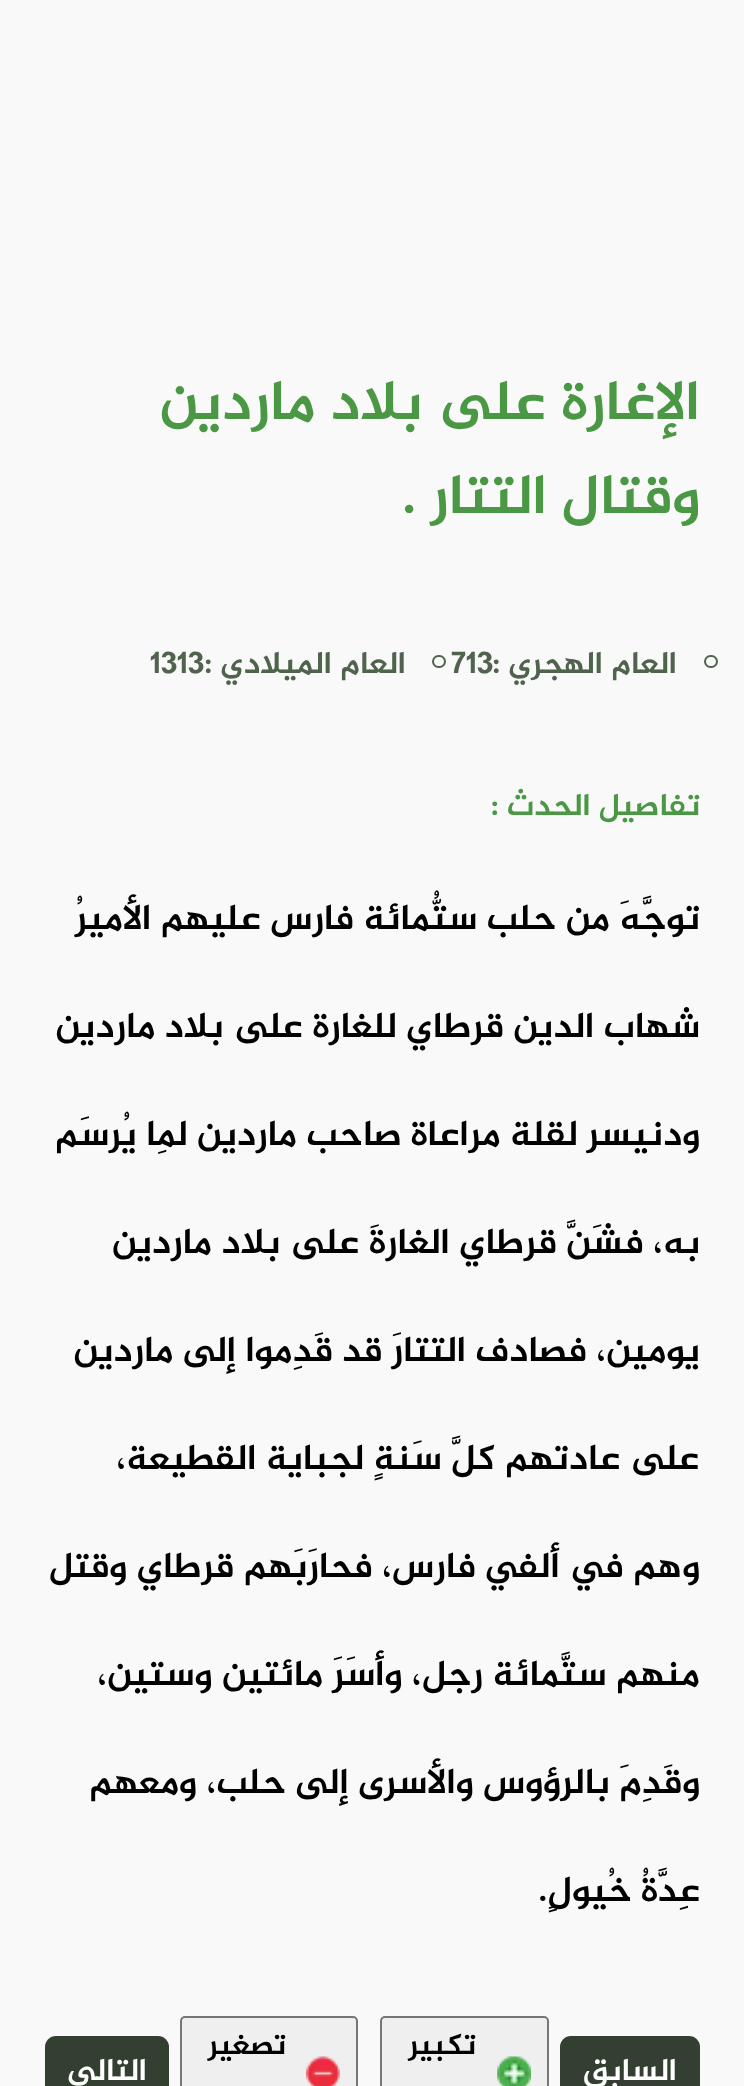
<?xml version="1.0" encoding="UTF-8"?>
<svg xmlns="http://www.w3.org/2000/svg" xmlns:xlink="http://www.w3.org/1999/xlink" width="744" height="2086">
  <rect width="100%" height="100%" fill="#f9f9f9" />
  <rect x="705" y="656" width="12" height="11" rx="5.5" fill="none" stroke="#4f634d" stroke-width="2" />
  <rect x="433" y="656" width="12" height="11" rx="5.5" fill="none" stroke="#4f634d" stroke-width="2" />
  <rect x="381" y="2017" width="167" height="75" rx="4" fill="#efefef" stroke="#767676" stroke-width="2" />
  <image x="497" y="2056" width="34" height="30" xlink:href="image1.png" />
  <rect x="181" y="2017" width="176" height="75" rx="4" fill="#efefef" stroke="#767676" stroke-width="2" />
  <image x="306" y="2056" width="34" height="30" xlink:href="image2.png" />
  <rect x="560" y="2036" width="140" height="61" rx="11" fill="#323f31" />
  <rect x="45" y="2036" width="124" height="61" rx="11" fill="#323f31" />
  <text x="700" y="419" style="font-family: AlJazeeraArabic; font-size: 56.25px; font-weight: bold; direction: rtl; fill: #4a9744">الإغارة على بلاد ماردين</text>
  <text x="700" y="513" style="font-family: AlJazeeraArabic; font-size: 56.25px; font-weight: bold; direction: rtl; fill: #4a9744">وقتال التتار .</text>
  <text x="677" y="673" style="font-family: AlJazeeraArabic; font-size: 31.5px; font-weight: bold; direction: rtl; fill: #4f634d">العام الهجري :</text>
  <text x="451" y="673" style="font-family: AlJazeeraArabic; font-size: 31.5px; font-weight: bold; fill: #4f634d">713</text>
  <text x="406" y="673" style="font-family: AlJazeeraArabic; font-size: 31.5px; font-weight: bold; direction: rtl; fill: #4f634d">العام الميلادي :</text>
  <text x="150" y="673" style="font-family: AlJazeeraArabic; font-size: 31.5px; font-weight: bold; fill: #4f634d">1313</text>
  <text x="700" y="815" style="font-family: AlJazeeraArabic; font-size: 31.5px; font-weight: bold; direction: rtl; fill: #4a9744">تفاصيل الحدث :</text>
  <text x="700" y="929" style="font-family: AlJazeeraArabic; font-size: 36px; font-weight: bold; direction: rtl; fill: #000000">توجَّهَ من حلب ستُّمائة فارس عليهم الأميرُ</text>
  <text x="700" y="1037" style="font-family: AlJazeeraArabic; font-size: 36px; font-weight: bold; direction: rtl; fill: #000000">شهاب الدين قرطاي للغارة على بلاد ماردين</text>
  <text x="700" y="1145" style="font-family: AlJazeeraArabic; font-size: 36px; font-weight: bold; direction: rtl; fill: #000000">ودنيسر لقلة مراعاة صاحب ماردين لِما يُرسَم</text>
  <text x="700" y="1253" style="font-family: AlJazeeraArabic; font-size: 36px; font-weight: bold; direction: rtl; fill: #000000">به، فشَنَّ قرطاي الغارةَ على بلاد ماردين</text>
  <text x="700" y="1361" style="font-family: AlJazeeraArabic; font-size: 36px; font-weight: bold; direction: rtl; fill: #000000">يومين، فصادف التتارَ قد قَدِموا إلى ماردين</text>
  <text x="700" y="1469" style="font-family: AlJazeeraArabic; font-size: 36px; font-weight: bold; direction: rtl; fill: #000000">على عادتهم كلَّ سَنةٍ لجباية القطيعة،</text>
  <text x="700" y="1577" style="font-family: AlJazeeraArabic; font-size: 36px; font-weight: bold; direction: rtl; fill: #000000">وهم في ألفي فارس، فحارَبَهم قرطاي وقتل</text>
  <text x="700" y="1685" style="font-family: AlJazeeraArabic; font-size: 36px; font-weight: bold; direction: rtl; fill: #000000">منهم ستَّمائة رجل، وأسَرَ مائتين وستين،</text>
  <text x="700" y="1793" style="font-family: AlJazeeraArabic; font-size: 36px; font-weight: bold; direction: rtl; fill: #000000">وقَدِمَ بالرؤوس والأسرى إلى حلب، ومعهم</text>
  <text x="700" y="1901" style="font-family: AlJazeeraArabic; font-size: 36px; font-weight: bold; direction: rtl; fill: #000000">عِدَّةُ خُيولٍ.</text>
  <text x="476" y="2054" style="font-family: AlJazeeraArabic; font-size: 30px; font-weight: bold; direction: rtl; fill: #000000">تكبير</text>
  <text x="286" y="2054" style="font-family: AlJazeeraArabic; font-size: 30px; font-weight: bold; direction: rtl; fill: #000000">تصغير</text>
  <text x="677" y="2080" style="font-family: AlJazeeraArabic; font-size: 31.5px; font-weight: bold; direction: rtl; fill: #ffffff">السابق</text>
  <text x="147" y="2080" style="font-family: AlJazeeraArabic; font-size: 31.5px; font-weight: bold; direction: rtl; fill: #ffffff">التالي</text>
</svg>
